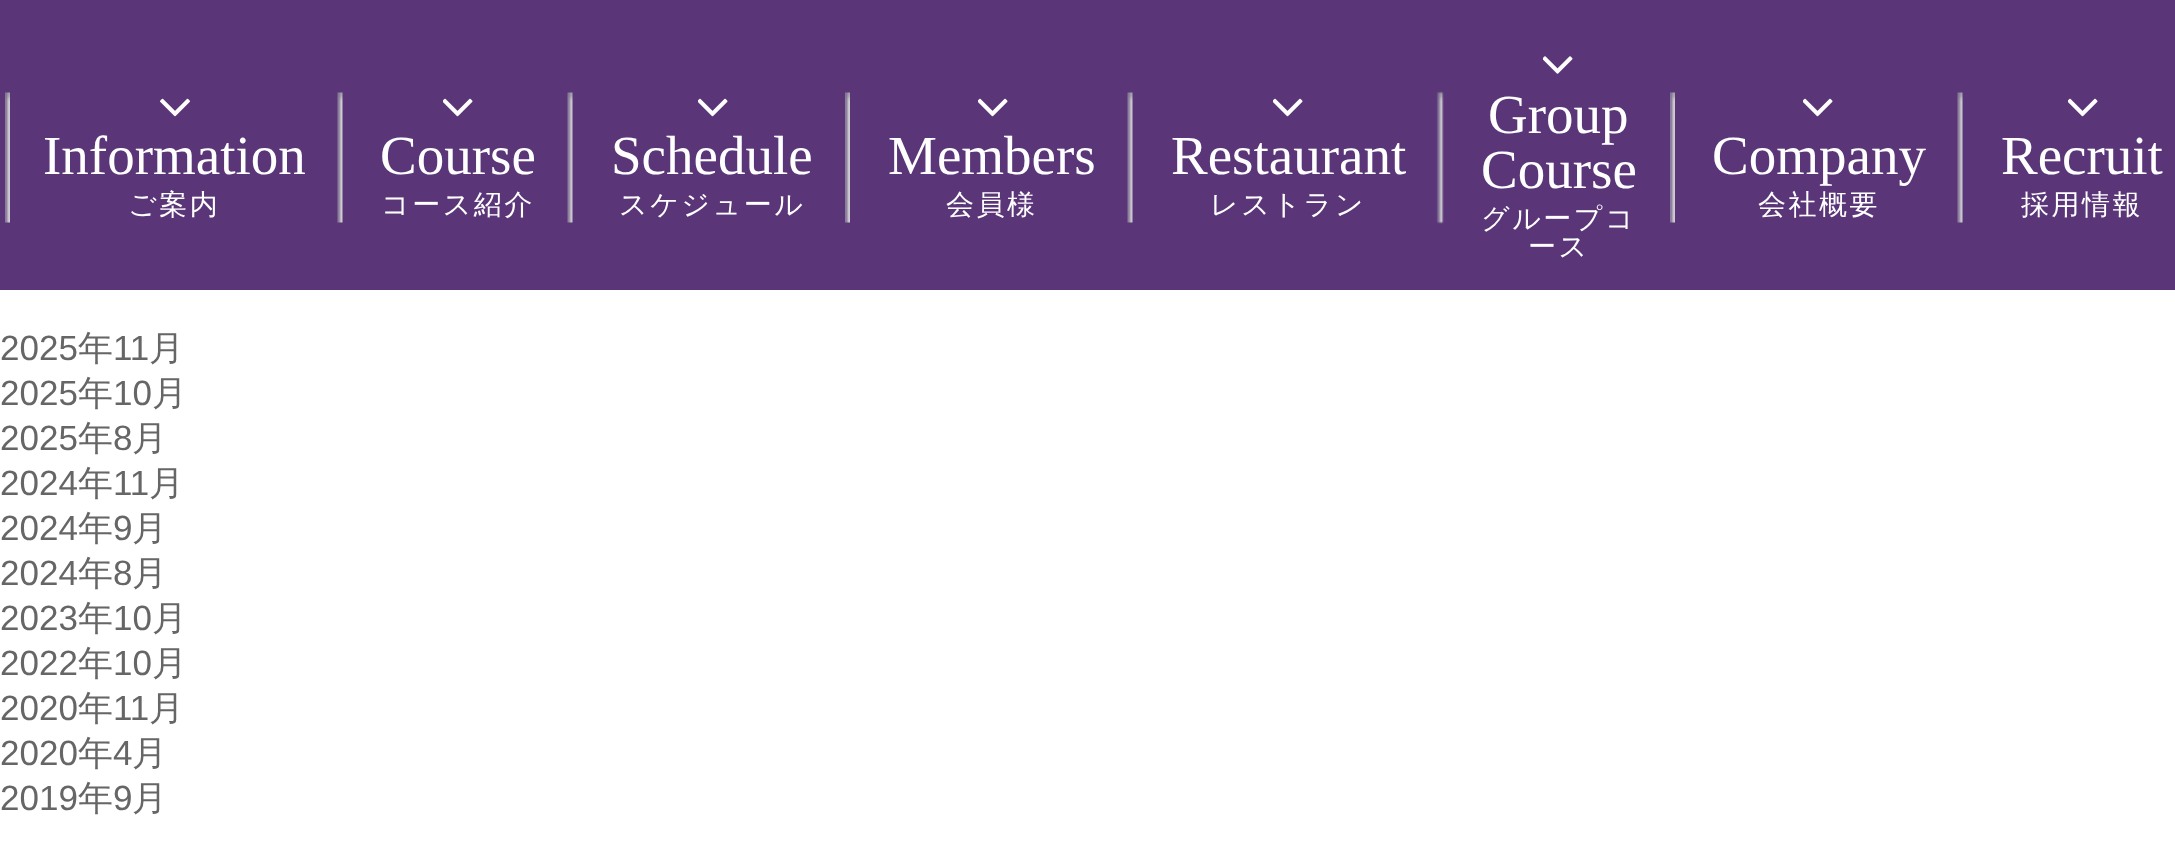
<?xml version="1.0" encoding="UTF-8"?>
<svg xmlns="http://www.w3.org/2000/svg" xmlns:xlink="http://www.w3.org/1999/xlink" width="2175" height="865">
  <rect width="100%" height="100%" fill="#ffffff" />
  <rect width="2175" height="290" fill="#5a3578" />
  <image x="5" y="92" width="338" height="131" xlink:href="image1.png" />
  <image x="160" y="98" width="30" height="19" xlink:href="image2.png" />
  <image x="567" y="92" width="6" height="131" xlink:href="image3.png" />
  <image x="443" y="98" width="30" height="19" xlink:href="image4.png" />
  <image x="845" y="92" width="5" height="131" xlink:href="image5.png" />
  <image x="698" y="98" width="30" height="19" xlink:href="image4.png" />
  <image x="1127" y="92" width="6" height="131" xlink:href="image3.png" />
  <image x="978" y="98" width="30" height="19" xlink:href="image4.png" />
  <image x="1436" y="91" width="8" height="133" xlink:href="image6.png" />
  <image x="1273" y="98" width="30" height="19" xlink:href="image4.png" />
  <image x="1670" y="92" width="5" height="131" xlink:href="image7.png" />
  <image x="1543" y="56" width="30" height="18" xlink:href="image8.png" />
  <image x="1957" y="92" width="6" height="131" xlink:href="image3.png" />
  <image x="1803" y="98" width="30" height="19" xlink:href="image4.png" />
  <image x="2068" y="98" width="30" height="19" xlink:href="image4.png" />
  <text x="43" y="174" style="font-family: Liberation Serif; font-size: 55px; fill: #ffffff">Information</text>
  <text x="128" y="214" style="font-family: WenQuanYi Zen Hei; font-size: 28px; font-weight: 500; letter-spacing: 2.5px; fill: #ffffff">ご案内</text>
  <text x="380" y="174" style="font-family: Liberation Serif; font-size: 55px; fill: #ffffff">Course</text>
  <text x="381" y="214" style="font-family: WenQuanYi Zen Hei; font-size: 28px; font-weight: 500; letter-spacing: 2.5px; fill: #ffffff">コース紹介</text>
  <text x="611" y="174" style="font-family: Liberation Serif; font-size: 55px; fill: #ffffff">Schedule</text>
  <text x="619" y="214" style="font-family: WenQuanYi Zen Hei; font-size: 28px; font-weight: 500; letter-spacing: 2.5px; fill: #ffffff">スケジュール</text>
  <text x="888" y="174" style="font-family: Liberation Serif; font-size: 55px; fill: #ffffff">Members</text>
  <text x="946" y="214" style="font-family: WenQuanYi Zen Hei; font-size: 28px; font-weight: 500; letter-spacing: 2.5px; fill: #ffffff">会員様</text>
  <text x="1171" y="174" style="font-family: Liberation Serif; font-size: 55px; fill: #ffffff">Restaurant</text>
  <text x="1210" y="214" style="font-family: WenQuanYi Zen Hei; font-size: 28px; font-weight: 500; letter-spacing: 2.5px; fill: #ffffff">レストラン</text>
  <text x="1488" y="133" style="font-family: Liberation Serif; font-size: 55px; fill: #ffffff">Group</text>
  <text x="1481" y="188" style="font-family: Liberation Serif; font-size: 55px; fill: #ffffff">Course</text>
  <text x="1481" y="228" style="font-family: WenQuanYi Zen Hei; font-size: 28px; font-weight: 500; letter-spacing: 2.5px; fill: #ffffff">グループコ</text>
  <text x="1528" y="256" style="font-family: WenQuanYi Zen Hei; font-size: 28px; font-weight: 500; letter-spacing: 2.5px; fill: #ffffff">ース</text>
  <text x="1712" y="174" style="font-family: Liberation Serif; font-size: 55px; fill: #ffffff">Company</text>
  <text x="1758" y="214" style="font-family: WenQuanYi Zen Hei; font-size: 28px; font-weight: 500; letter-spacing: 2.5px; fill: #ffffff">会社概要</text>
  <text x="2001" y="174" style="font-family: Liberation Serif; font-size: 55px; fill: #ffffff">Recruit</text>
  <text x="2021" y="214" style="font-family: WenQuanYi Zen Hei; font-size: 28px; font-weight: 500; letter-spacing: 2.5px; fill: #ffffff">採用情報</text>
  <text x="0" y="360" style="font-family: Liberation Sans; font-size: 35px; fill: #666666">2025</text>
  <text x="78" y="360" style="font-family: WenQuanYi Zen Hei; font-size: 35px; font-weight: 500; fill: #666666">年</text>
  <text x="113" y="360" style="font-family: Liberation Sans; font-size: 35px; fill: #666666">11</text>
  <text x="149" y="360" style="font-family: WenQuanYi Zen Hei; font-size: 35px; font-weight: 500; fill: #666666">月</text>
  <text x="0" y="405" style="font-family: Liberation Sans; font-size: 35px; fill: #666666">2025</text>
  <text x="78" y="405" style="font-family: WenQuanYi Zen Hei; font-size: 35px; font-weight: 500; fill: #666666">年</text>
  <text x="113" y="405" style="font-family: Liberation Sans; font-size: 35px; fill: #666666">10</text>
  <text x="152" y="405" style="font-family: WenQuanYi Zen Hei; font-size: 35px; font-weight: 500; fill: #666666">月</text>
  <text x="0" y="450" style="font-family: Liberation Sans; font-size: 35px; fill: #666666">2025</text>
  <text x="78" y="450" style="font-family: WenQuanYi Zen Hei; font-size: 35px; font-weight: 500; fill: #666666">年</text>
  <text x="113" y="450" style="font-family: Liberation Sans; font-size: 35px; fill: #666666">8</text>
  <text x="132" y="450" style="font-family: WenQuanYi Zen Hei; font-size: 35px; font-weight: 500; fill: #666666">月</text>
  <text x="0" y="495" style="font-family: Liberation Sans; font-size: 35px; fill: #666666">2024</text>
  <text x="78" y="495" style="font-family: WenQuanYi Zen Hei; font-size: 35px; font-weight: 500; fill: #666666">年</text>
  <text x="113" y="495" style="font-family: Liberation Sans; font-size: 35px; fill: #666666">11</text>
  <text x="149" y="495" style="font-family: WenQuanYi Zen Hei; font-size: 35px; font-weight: 500; fill: #666666">月</text>
  <text x="0" y="540" style="font-family: Liberation Sans; font-size: 35px; fill: #666666">2024</text>
  <text x="78" y="540" style="font-family: WenQuanYi Zen Hei; font-size: 35px; font-weight: 500; fill: #666666">年</text>
  <text x="113" y="540" style="font-family: Liberation Sans; font-size: 35px; fill: #666666">9</text>
  <text x="132" y="540" style="font-family: WenQuanYi Zen Hei; font-size: 35px; font-weight: 500; fill: #666666">月</text>
  <text x="0" y="585" style="font-family: Liberation Sans; font-size: 35px; fill: #666666">2024</text>
  <text x="78" y="585" style="font-family: WenQuanYi Zen Hei; font-size: 35px; font-weight: 500; fill: #666666">年</text>
  <text x="113" y="585" style="font-family: Liberation Sans; font-size: 35px; fill: #666666">8</text>
  <text x="132" y="585" style="font-family: WenQuanYi Zen Hei; font-size: 35px; font-weight: 500; fill: #666666">月</text>
  <text x="0" y="630" style="font-family: Liberation Sans; font-size: 35px; fill: #666666">2023</text>
  <text x="78" y="630" style="font-family: WenQuanYi Zen Hei; font-size: 35px; font-weight: 500; fill: #666666">年</text>
  <text x="113" y="630" style="font-family: Liberation Sans; font-size: 35px; fill: #666666">10</text>
  <text x="152" y="630" style="font-family: WenQuanYi Zen Hei; font-size: 35px; font-weight: 500; fill: #666666">月</text>
  <text x="0" y="675" style="font-family: Liberation Sans; font-size: 35px; fill: #666666">2022</text>
  <text x="78" y="675" style="font-family: WenQuanYi Zen Hei; font-size: 35px; font-weight: 500; fill: #666666">年</text>
  <text x="113" y="675" style="font-family: Liberation Sans; font-size: 35px; fill: #666666">10</text>
  <text x="152" y="675" style="font-family: WenQuanYi Zen Hei; font-size: 35px; font-weight: 500; fill: #666666">月</text>
  <text x="0" y="720" style="font-family: Liberation Sans; font-size: 35px; fill: #666666">2020</text>
  <text x="78" y="720" style="font-family: WenQuanYi Zen Hei; font-size: 35px; font-weight: 500; fill: #666666">年</text>
  <text x="113" y="720" style="font-family: Liberation Sans; font-size: 35px; fill: #666666">11</text>
  <text x="149" y="720" style="font-family: WenQuanYi Zen Hei; font-size: 35px; font-weight: 500; fill: #666666">月</text>
  <text x="0" y="765" style="font-family: Liberation Sans; font-size: 35px; fill: #666666">2020</text>
  <text x="78" y="765" style="font-family: WenQuanYi Zen Hei; font-size: 35px; font-weight: 500; fill: #666666">年</text>
  <text x="113" y="765" style="font-family: Liberation Sans; font-size: 35px; fill: #666666">4</text>
  <text x="132" y="765" style="font-family: WenQuanYi Zen Hei; font-size: 35px; font-weight: 500; fill: #666666">月</text>
  <text x="0" y="810" style="font-family: Liberation Sans; font-size: 35px; fill: #666666">2019</text>
  <text x="78" y="810" style="font-family: WenQuanYi Zen Hei; font-size: 35px; font-weight: 500; fill: #666666">年</text>
  <text x="113" y="810" style="font-family: Liberation Sans; font-size: 35px; fill: #666666">9</text>
  <text x="132" y="810" style="font-family: WenQuanYi Zen Hei; font-size: 35px; font-weight: 500; fill: #666666">月</text>
</svg>
